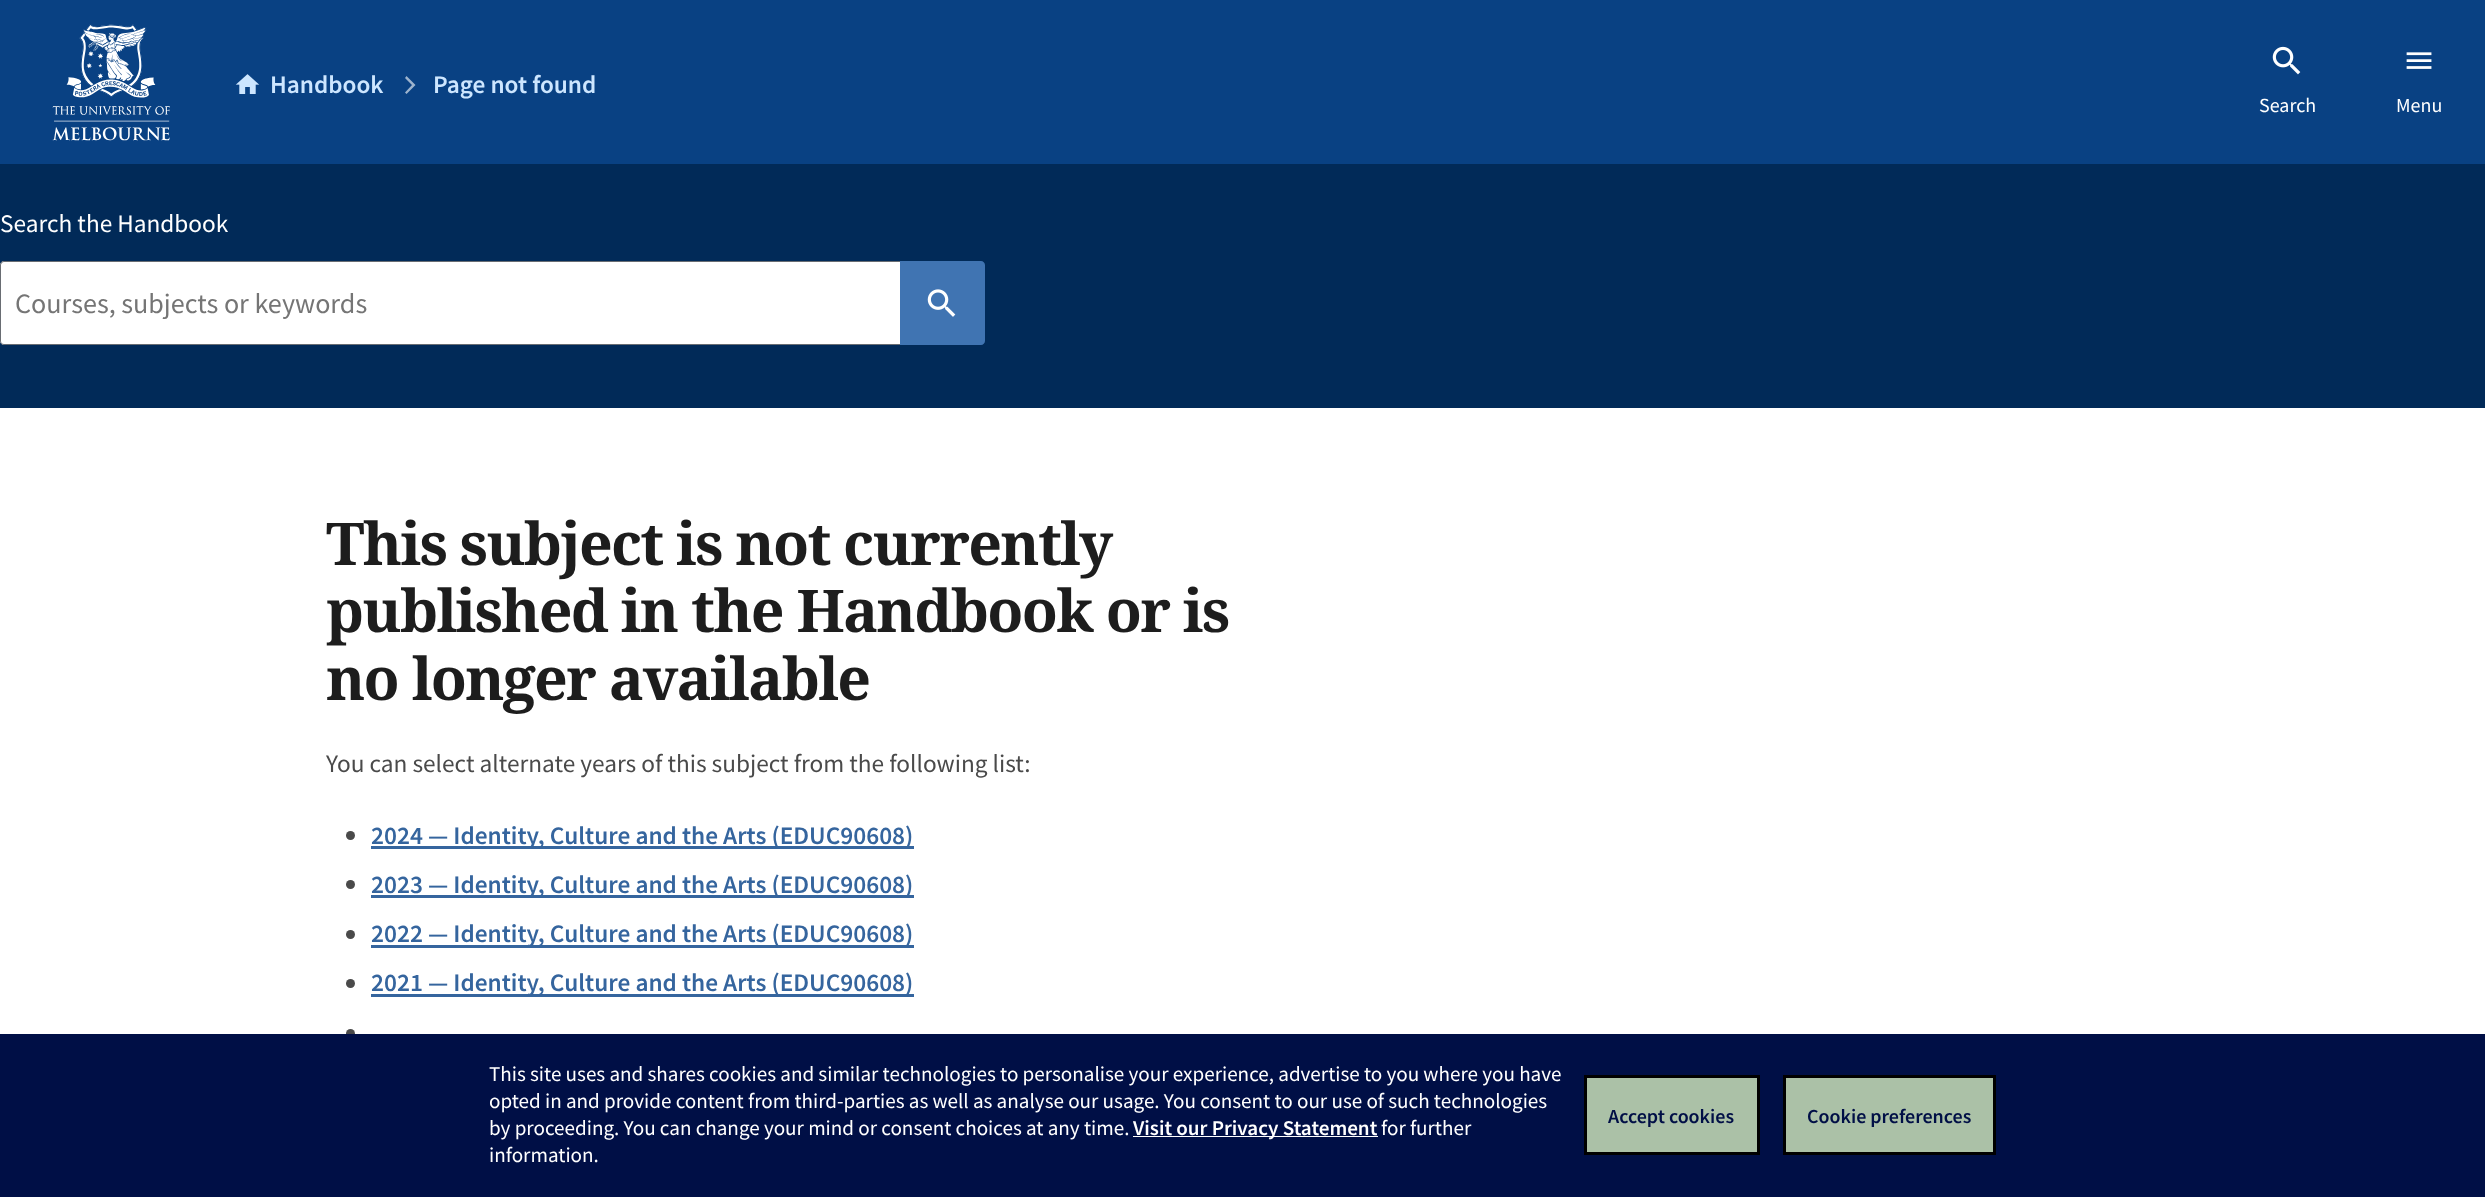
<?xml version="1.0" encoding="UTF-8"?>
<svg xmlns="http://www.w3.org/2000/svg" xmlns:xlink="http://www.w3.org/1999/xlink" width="2485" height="1197">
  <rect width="100%" height="100%" fill="#ffffff" />
  <rect width="2485" height="164" fill="#094183" />
  <image x="52" y="24" width="118" height="117" xlink:href="image1.png" />
  <image x="235" y="74" width="25" height="20" xlink:href="image2.png" />
  <path d="M 406.5 76 l 9 9 h -3.5 l -7 -7 z m 9 9 l -9 9 l -1.5 -1.5 l 7 -7.5 z" fill="#9db3cd" />
  <image x="2272" y="46" width="29" height="29" xlink:href="image3.png" />
  <image x="2406" y="52" width="26" height="17" xlink:href="image4.png" />
  <rect y="164" width="2485" height="244" fill="#012a58" />
  <path d="M 4 261 h 896 v 84 h -896 c -2 0 -4 -2 -4 -4 v -76 c 0 -2 2 -4 4 -4 z" fill="#ffffff" />
  <path d="M 4 261 h 896 v 84 h -896 c -2 0 -4 -2 -4 -4 v -76 c 0 -2 2 -4 4 -4 z m 0 1 h 896 v 82 h -896 c -2 0 -3 -1 -3 -3 v -76 c 0 -1 1 -3 3 -3 z" fill="#696d73" fill-rule="evenodd" />
  <path d="M 900 261 h 81 c 2 0 4 2 4 4 v 76 c 0 2 -2 4 -4 4 h -81 z" fill="#4074b2" />
  <image x="927" y="289" width="29" height="28" xlink:href="image5.png" />
  <circle cx="350.5" cy="835.5" r="4.5" fill="#4a4a4a" />
  <rect x="371" y="846" width="543" height="3" fill="#35659e" />
  <circle cx="350.5" cy="884.5" r="4.5" fill="#4a4a4a" />
  <rect x="371" y="895" width="543" height="3" fill="#35659e" />
  <circle cx="350.5" cy="934.5" r="4.5" fill="#4a4a4a" />
  <rect x="371" y="945" width="543" height="3" fill="#35659e" />
  <circle cx="350.5" cy="983.5" r="4.5" fill="#4a4a4a" />
  <rect x="371" y="994" width="543" height="3" fill="#35659e" />
  <circle cx="350.5" cy="1033.5" r="4.5" fill="#4a4a4a" />
  <rect y="1034" width="2485" height="163" fill="#000f46" />
  <rect x="1133" y="1136" width="245" height="1" fill="#ffffff" />
  <rect x="1585.5" y="1076.5" width="173" height="77" fill="#abc1a7" stroke="#000000" stroke-width="3" />
  <rect x="1784.5" y="1076.5" width="210" height="77" fill="#abc1a7" stroke="#000000" stroke-width="3" />
  <text x="270" y="93" style="font-family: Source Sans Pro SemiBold; font-size: 25.3px; font-weight: 600; fill: #cde6ff">Handbook</text>
  <text x="433" y="93" style="font-family: Source Sans Pro SemiBold; font-size: 25.3px; font-weight: 600; fill: #cde6ff">Page not found</text>
  <text x="2259" y="112" style="font-family: Source Sans Pro; font-size: 20px; fill: #ffffff">Search</text>
  <text x="2396" y="112" style="font-family: Source Sans Pro; font-size: 20px; fill: #ffffff">Menu</text>
  <text x="0" y="232" style="font-family: Source Sans Pro; font-size: 25.3px; fill: #ffffff">Search the Handbook</text>
  <text x="15" y="313" style="font-family: Source Sans Pro; font-size: 28.1px; fill: #757575">Courses, subjects or keywords</text>
  <text x="326" y="565" style="font-family: Noto Serif; font-size: 59px; font-weight: bold; letter-spacing: -1.75px; fill: #1d1d1d">This subject is not currently</text>
  <text x="326" y="632" style="font-family: Noto Serif; font-size: 59px; font-weight: bold; letter-spacing: -1.75px; fill: #1d1d1d">published in the Handbook or is</text>
  <text x="326" y="700" style="font-family: Noto Serif; font-size: 59px; font-weight: bold; letter-spacing: -1.75px; fill: #1d1d1d">no longer available</text>
  <text x="326" y="772" style="font-family: Source Sans Pro; font-size: 25.3px; fill: #4a4a4a">You can select alternate years of this subject from the following list:</text>
  <text x="371" y="844" style="font-family: Source Sans Pro SemiBold; font-size: 25.3px; font-weight: 600; fill: #35659e">2024 — Identity, Culture and the Arts (EDUC90608)</text>
  <text x="371" y="893" style="font-family: Source Sans Pro SemiBold; font-size: 25.3px; font-weight: 600; fill: #35659e">2023 — Identity, Culture and the Arts (EDUC90608)</text>
  <text x="371" y="942" style="font-family: Source Sans Pro SemiBold; font-size: 25.3px; font-weight: 600; fill: #35659e">2022 — Identity, Culture and the Arts (EDUC90608)</text>
  <text x="371" y="991" style="font-family: Source Sans Pro SemiBold; font-size: 25.3px; font-weight: 600; fill: #35659e">2021 — Identity, Culture and the Arts (EDUC90608)</text>
  <text x="489" y="1081" style="font-family: Source Sans Pro; font-size: 21.1px; fill: #ffffff">This site uses and shares cookies and similar technologies to personalise your experience, advertise to you where you have</text>
  <text x="489" y="1108" style="font-family: Source Sans Pro; font-size: 21.1px; fill: #ffffff">opted in and provide content from third-parties as well as analyse our usage. You consent to our use of such technologies</text>
  <text x="489" y="1135" style="font-family: Source Sans Pro; font-size: 21.1px; fill: #ffffff">by proceeding. You can change your mind or consent choices at any time.</text>
  <text x="1133" y="1135" style="font-family: Source Sans Pro SemiBold; font-size: 21.1px; font-weight: 600; fill: #ffffff">Visit our Privacy Statement</text>
  <text x="1381" y="1135" style="font-family: Source Sans Pro; font-size: 21.1px; fill: #ffffff">for further</text>
  <text x="489" y="1162" style="font-family: Source Sans Pro; font-size: 21.1px; fill: #ffffff">information.</text>
  <text x="1608" y="1123" style="font-family: Source Sans Pro SemiBold; font-size: 20px; font-weight: 600; fill: #000f46">Accept cookies</text>
  <text x="1807" y="1123" style="font-family: Source Sans Pro SemiBold; font-size: 20px; font-weight: 600; fill: #000f46">Cookie preferences</text>
</svg>
